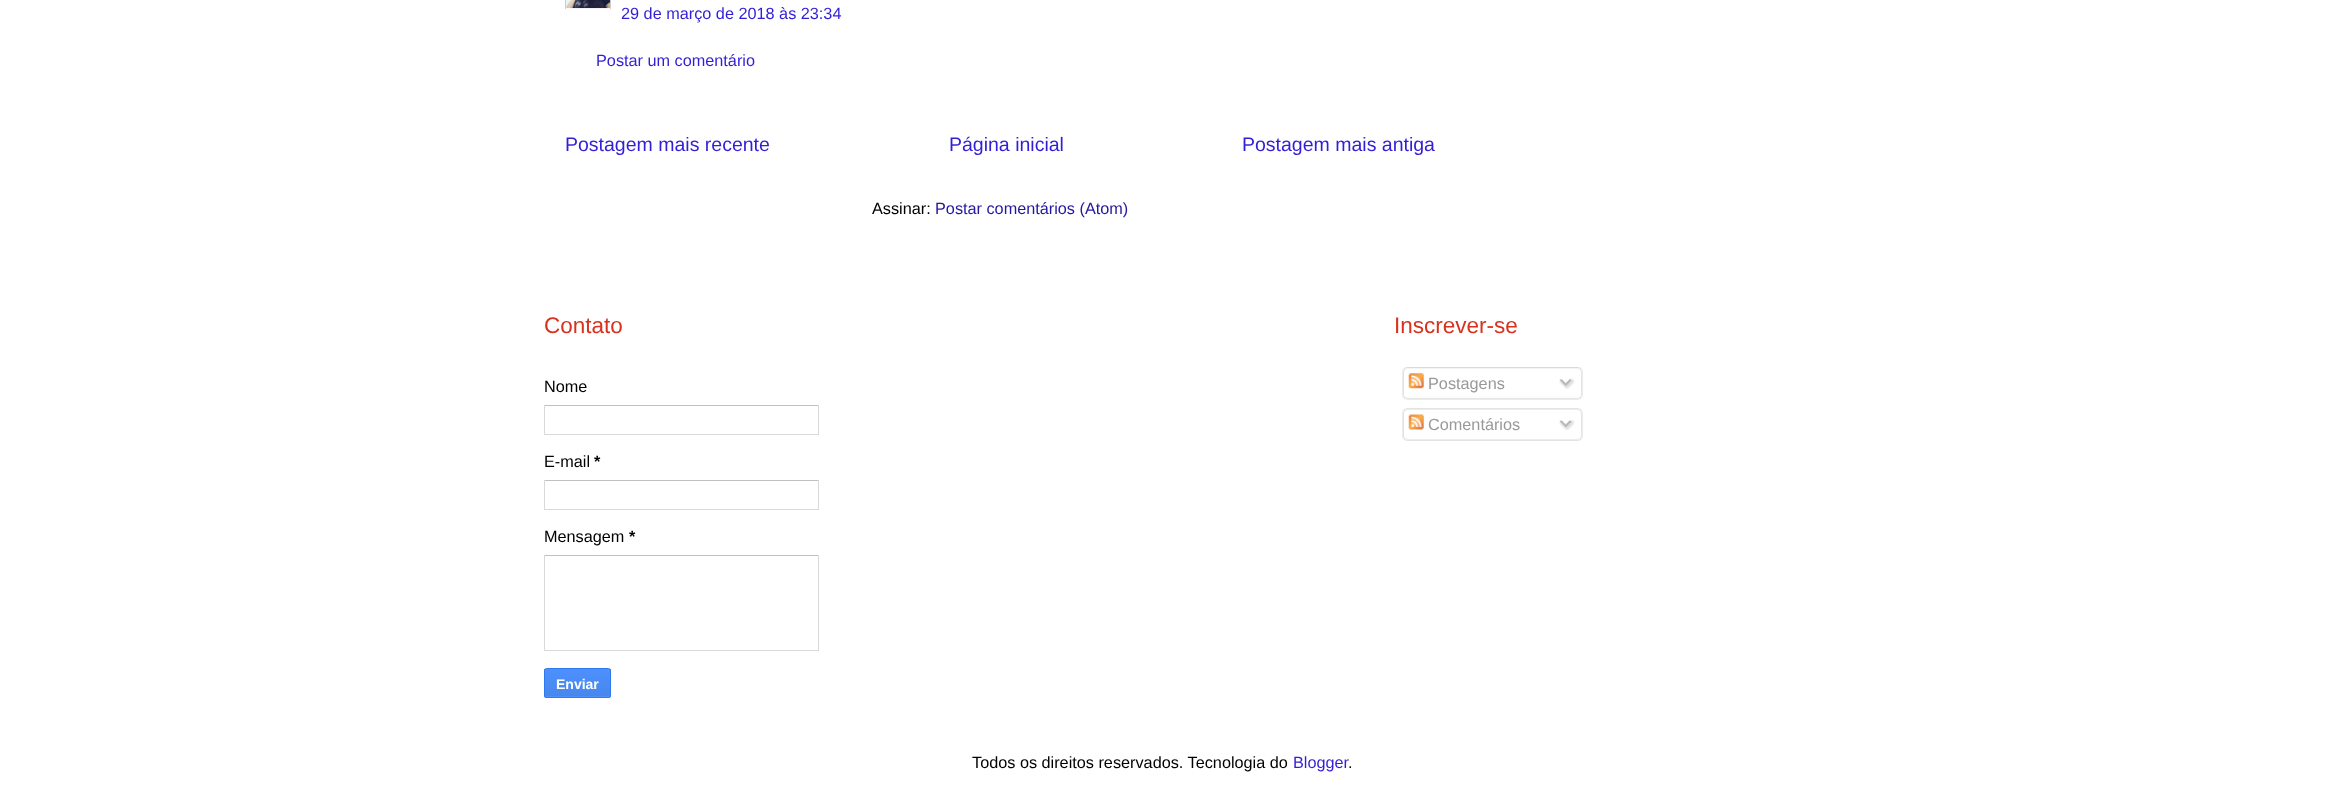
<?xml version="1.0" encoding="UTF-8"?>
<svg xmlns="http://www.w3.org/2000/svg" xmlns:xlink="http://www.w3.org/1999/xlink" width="2325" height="811">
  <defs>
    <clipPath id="clip1"><rect x="565" width="46" height="9" /></clipPath>
    <linearGradient id="g1" gradientUnits="userSpaceOnUse" x1="578" y1="669" x2="578" y2="696"><stop offset="0" stop-color="#4d90fe" /><stop offset="1" stop-color="#4787ed" /></linearGradient>
    <clipPath id="clip2"><rect x="544" y="668" width="67" height="30" rx="2.5" /></clipPath>
    <linearGradient id="g2" gradientUnits="userSpaceOnUse" x1="578" y1="696" x2="578" y2="724"><stop offset="0" stop-color="#4d90fe" /><stop offset="1" stop-color="#4787ed" /></linearGradient>
  </defs>
  <rect width="100%" height="100%" fill="#ffffff" />
  <g clip-path="url(#clip1)">
    <rect x="565.5" y="-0.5" width="45" height="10" fill="none" stroke="#cccccc" />
  </g>
  <image x="566" y="0" width="44" height="9" xlink:href="image1.png" />
  <rect x="544" y="405" width="275" height="1" fill="#c0c0c0" />
  <rect x="818" y="405" width="1" height="30" fill="#d9d9d9" />
  <rect x="544" y="434" width="275" height="1" fill="#d9d9d9" />
  <rect x="544" y="405" width="1" height="30" fill="#d9d9d9" />
  <rect x="544" y="480" width="275" height="1" fill="#c0c0c0" />
  <rect x="818" y="480" width="1" height="30" fill="#d9d9d9" />
  <rect x="544" y="509" width="275" height="1" fill="#d9d9d9" />
  <rect x="544" y="480" width="1" height="30" fill="#d9d9d9" />
  <rect x="544" y="555" width="275" height="1" fill="#c0c0c0" />
  <rect x="818" y="555" width="1" height="96" fill="#d9d9d9" />
  <rect x="544" y="650" width="275" height="1" fill="#d9d9d9" />
  <rect x="544" y="555" width="1" height="96" fill="#d9d9d9" />
  <rect x="544" y="669" width="67" height="27" fill="url(#g1)" />
  <g clip-path="url(#clip2)">
    <rect x="544" y="696" width="67" height="2" fill="url(#g2)" />
  </g>
  <rect x="544.5" y="668.5" width="66" height="29" rx="2" fill="none" stroke="#3079ed" />
  <image x="1402" y="367" width="181" height="29" xlink:href="image2.png" />
  <image x="1408" y="373" width="16" height="16" xlink:href="image3.png" />
  <image x="1559" y="378" width="16" height="12" xlink:href="image4.png" />
  <image x="1402" y="396" width="181" height="4" xlink:href="image5.png" />
  <image x="1402" y="408" width="181" height="29" xlink:href="image6.png" />
  <image x="1408" y="414" width="16" height="16" xlink:href="image7.png" />
  <image x="1559" y="420" width="16" height="11" xlink:href="image8.png" />
  <image x="1402" y="437" width="181" height="4" xlink:href="image9.png" />
  <text x="621" y="19" style="font-family: Liberation Sans; font-size: 16.25px; fill: #321ed6">29 de março de 2018 às 23:34</text>
  <text x="596" y="66" style="font-family: Liberation Sans; font-size: 16.25px; fill: #321ed6">Postar um comentário</text>
  <text x="565" y="151" style="font-family: Liberation Sans; font-size: 19.5px; fill: #321ed6">Postagem mais recente</text>
  <text x="949" y="151" style="font-family: Liberation Sans; font-size: 19.5px; fill: #321ed6">Página inicial</text>
  <text x="1242" y="151" style="font-family: Liberation Sans; font-size: 19.5px; fill: #321ed6">Postagem mais antiga</text>
  <text x="872" y="214" style="font-family: Liberation Sans; font-size: 16.25px; fill: #000000">Assinar:</text>
  <text x="935" y="214" style="font-family: Liberation Sans; font-size: 16.25px; fill: #2516a0">Postar comentários (Atom)</text>
  <text x="544" y="333" style="font-family: Liberation Sans; font-size: 22.5px; fill: #d6321e">Contato</text>
  <text x="544" y="392" style="font-family: Liberation Sans; font-size: 16.25px; fill: #000000">Nome</text>
  <text x="544" y="467" style="font-family: Liberation Sans; font-size: 16.25px; fill: #000000">E-mail</text>
  <text x="594" y="467" style="font-family: Liberation Sans; font-size: 16.25px; font-weight: bold; fill: #000000">*</text>
  <text x="544" y="542" style="font-family: Liberation Sans; font-size: 16.25px; fill: #000000">Mensagem</text>
  <text x="629" y="542" style="font-family: Liberation Sans; font-size: 16.25px; font-weight: bold; fill: #000000">*</text>
  <text x="556" y="689" style="font-family: Liberation Sans; font-size: 14px; font-weight: bold; fill: #ffffff">Enviar</text>
  <text x="1394" y="333" style="font-family: Liberation Sans; font-size: 22.5px; fill: #d6321e">Inscrever-se</text>
  <text x="1428" y="389" style="font-family: Liberation Sans; font-size: 16.25px; fill: #999999">Postagens</text>
  <text x="1428" y="430" style="font-family: Liberation Sans; font-size: 16.25px; fill: #999999">Comentários</text>
  <text x="972" y="768" style="font-family: Liberation Sans; font-size: 16.25px; fill: #000000">Todos os direitos reservados. Tecnologia do</text>
  <text x="1293" y="768" style="font-family: Liberation Sans; font-size: 16.25px; fill: #321ed6">Blogger</text>
  <text x="1348" y="768" style="font-family: Liberation Sans; font-size: 16.25px; fill: #000000">.</text>
</svg>
